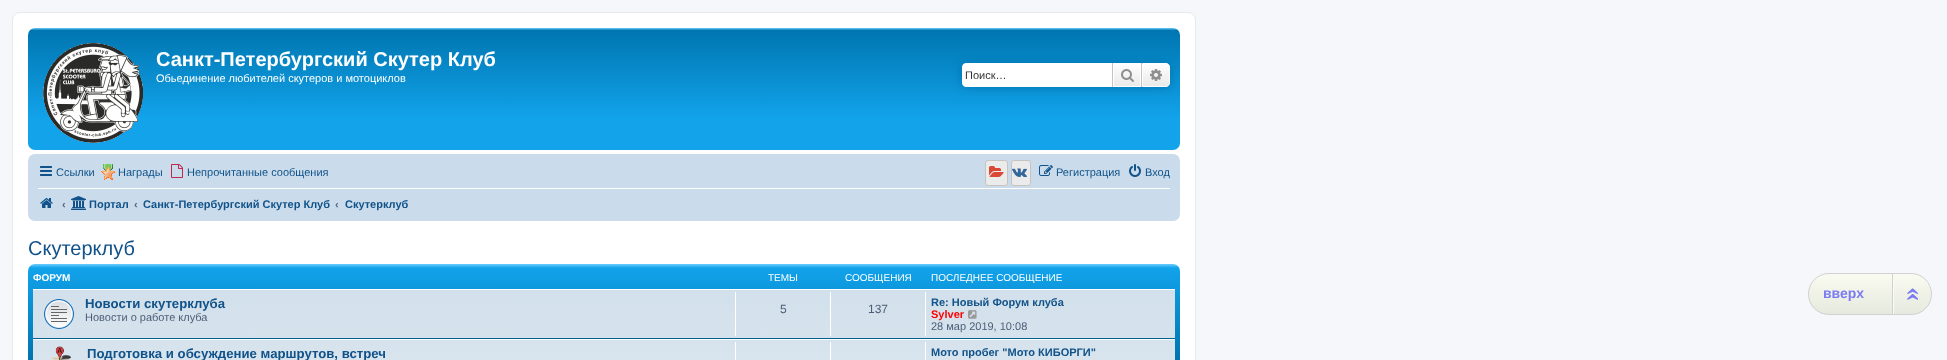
<?xml version="1.0" encoding="UTF-8"?>
<svg xmlns="http://www.w3.org/2000/svg" xmlns:xlink="http://www.w3.org/1999/xlink" width="1947" height="360">
  <defs>
    <linearGradient id="g1" gradientUnits="userSpaceOnUse" x1="604" y1="28" x2="604" y2="150"><stop offset="0" stop-color="#6aceff" /><stop offset="0.02" stop-color="#0076b1" /><stop offset="0.75" stop-color="#12a3eb" /><stop offset="1" stop-color="#12a3eb" /></linearGradient>
    <linearGradient id="g2" gradientUnits="userSpaceOnUse" x1="1127" y1="63" x2="1127" y2="87"><stop offset="0" stop-color="#ffffff" /><stop offset="1" stop-color="#e9e9e9" /></linearGradient>
    <linearGradient id="g3" gradientUnits="userSpaceOnUse" x1="1156" y1="63" x2="1156" y2="87"><stop offset="0" stop-color="#ffffff" /><stop offset="1" stop-color="#e9e9e9" /></linearGradient>
    <linearGradient id="g4" gradientUnits="userSpaceOnUse" x1="604" y1="264" x2="604" y2="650"><stop offset="0" stop-color="#6aceff" /><stop offset="0.01" stop-color="#12a3eb" /><stop offset="0.24" stop-color="#0076b1" /><stop offset="1" stop-color="#0076b1" /></linearGradient>
    <linearGradient id="g5" gradientUnits="userSpaceOnUse" x1="604" y1="289" x2="604" y2="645"><stop offset="0" stop-color="#d2e0eb" /><stop offset="1" stop-color="#eef5f9" /></linearGradient>
    <clipPath id="clip1"><rect x="1808" y="273" width="124" height="42" rx="21" /></clipPath>
    <linearGradient id="g6" gradientUnits="userSpaceOnUse" x1="1870" y1="274" x2="1870" y2="314"><stop offset="0" stop-color="#fafbf1" /><stop offset="1" stop-color="#e6e9dd" /></linearGradient>
  </defs>
  <rect width="100%" height="100%" fill="#f5f7fa" />
  <rect x="12.5" y="12.5" width="1183" height="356" rx="7.5" fill="#ffffff" stroke="#e6e9ed" />
  <rect x="28" y="28" width="1152" height="122" rx="7" fill="url(#g1)" />
  <image x="43" y="43" width="100" height="100" xlink:href="image1.png" />
  <rect x="962" y="63" width="208" height="24" rx="4" fill="#0075b0" filter="blur(5px)" />
  <path d="M 966 63 h 146 v 24 h -146 c -2 0 -4 -2 -4 -4 v -16 c 0 -2 2 -4 4 -4 z" fill="#ffffff" />
  <rect x="1114" y="64" width="26" height="22" fill="url(#g2)" />
  <rect x="1113.5" y="63.5" width="27" height="23" fill="none" stroke="#ffffff" />
  <rect x="1141" y="63" width="1" height="24" fill="#c7c3bf" />
  <rect x="1112" y="63" width="1" height="24" fill="#c7c3bf" />
  <image x="1121" y="69" width="13" height="13" xlink:href="image2.png" />
  <path d="M 1142.5 63.5 h 23.5 c 2 0 3.5 1.5 3.5 3.5 v 16 c 0 2 -1.5 3.5 -3.5 3.5 h -23.5 z" fill="url(#g3)" stroke="#ffffff" />
  <image x="1150" y="69" width="12" height="12" xlink:href="image3.png" />
  <rect x="28" y="154" width="1152" height="67" rx="7" fill="#cadceb" />
  <image x="40" y="166" width="12" height="10" xlink:href="image4.png" />
  <image x="101" y="164" width="14" height="16" xlink:href="image5.png" />
  <image x="171" y="164" width="12" height="14" xlink:href="image6.png" />
  <rect x="985.5" y="160.5" width="22" height="25" rx="2.5" fill="#ebebeb" stroke="#c7c3bf" />
  <image x="989" y="166" width="15" height="11" xlink:href="image7.png" />
  <rect x="1011.5" y="160.5" width="19" height="25" rx="2.5" fill="#ebebeb" stroke="#c7c3bf" />
  <image x="1012" y="168" width="15" height="9" xlink:href="image8.png" />
  <image x="1039" y="165" width="14" height="11" xlink:href="image9.png" />
  <image x="1129" y="164" width="12" height="13" xlink:href="image10.png" />
  <rect x="38" y="188" width="1132" height="1" fill="#ffffff" />
  <image x="40" y="198" width="13" height="10" xlink:href="image11.png" />
  <image x="71" y="196" width="15" height="14" xlink:href="image12.png" />
  <rect x="28" y="264" width="1152" height="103" rx="7" fill="url(#g4)" />
  <rect x="33" y="290" width="1142" height="70" fill="url(#g5)" />
  <rect x="33" y="289" width="1142" height="1" fill="#ffffff" />
  <rect x="33" y="338" width="1142" height="1" fill="#00608f" />
  <image x="44" y="299" width="30" height="30" xlink:href="image13.png" />
  <rect x="735" y="292" width="1" height="44" fill="#ffffff" />
  <rect x="830" y="292" width="1" height="44" fill="#ffffff" />
  <rect x="925" y="292" width="1" height="44" fill="#ffffff" />
  <image x="968" y="310" width="9" height="9" xlink:href="image14.png" />
  <rect x="33" y="339" width="1142" height="1" fill="#ffffff" />
  <image x="50" y="346" width="21" height="14" xlink:href="image15.png" />
  <rect x="735" y="342" width="1" height="18" fill="#ffffff" />
  <rect x="830" y="342" width="1" height="18" fill="#ffffff" />
  <rect x="925" y="342" width="1" height="18" fill="#ffffff" />
  <g clip-path="url(#clip1)">
    <rect x="1809" y="274" width="122" height="40" fill="url(#g6)" />
  </g>
  <rect x="1893" y="274" width="1" height="40" fill="#fafbf1" />
  <rect x="1892" y="274" width="1" height="40" fill="#d0d1d2" />
  <rect x="1808.5" y="273.5" width="123" height="41" rx="20.5" fill="none" stroke="#d0d1d2" />
  <text x="156" y="66" style="font-family: Liberation Sans; font-size: 20px; font-weight: bold; fill: #ffffff">Санкт-Петербургский Скутер Клуб</text>
  <text x="156" y="82" style="font-family: Liberation Sans; font-size: 11px; fill: #ffffff">Обьединение любителей скутеров и мотоциклов</text>
  <text x="965" y="79" style="font-family: Liberation Sans; font-size: 11px; fill: #333333">Поиск…</text>
  <text x="56" y="176" style="font-family: Liberation Sans; font-size: 11px; fill: #105289">Ссылки</text>
  <text x="118" y="176" style="font-family: Liberation Sans; font-size: 11px; fill: #105289">Награды</text>
  <text x="187" y="176" style="font-family: Liberation Sans; font-size: 11px; fill: #105289">Непрочитанные сообщения</text>
  <text x="1056" y="176" style="font-family: Liberation Sans; font-size: 11px; fill: #105289">Регистрация</text>
  <text x="1145" y="176" style="font-family: Liberation Sans; font-size: 11px; fill: #105289">Вход</text>
  <text x="62" y="208" style="font-family: Liberation Sans; font-size: 11px; font-weight: bold; fill: #536482">‹</text>
  <text x="89" y="208" style="font-family: Liberation Sans; font-size: 11px; font-weight: bold; fill: #105289">Портал</text>
  <text x="134" y="208" style="font-family: Liberation Sans; font-size: 11px; font-weight: bold; fill: #536482">‹</text>
  <text x="143" y="208" style="font-family: Liberation Sans; font-size: 11px; font-weight: bold; fill: #105289">Санкт-Петербургский Скутер Клуб</text>
  <text x="335" y="208" style="font-family: Liberation Sans; font-size: 11px; font-weight: bold; fill: #536482">‹</text>
  <text x="345" y="208" style="font-family: Liberation Sans; font-size: 11px; font-weight: bold; fill: #105289">Скутерклуб</text>
  <text x="28" y="255" style="font-family: Liberation Sans; font-size: 20px; fill: #105289">Скутерклуб</text>
  <text x="33" y="281" style="font-family: Liberation Sans; font-size: 10px; font-weight: bold; fill: #ffffff">ФОРУМ</text>
  <text x="768" y="281" style="font-family: Liberation Sans; font-size: 10px; fill: #ffffff">ТЕМЫ</text>
  <text x="845" y="281" style="font-family: Liberation Sans; font-size: 10px; fill: #ffffff">СООБЩЕНИЯ</text>
  <text x="931" y="281" style="font-family: Liberation Sans; font-size: 10px; fill: #ffffff">ПОСЛЕДНЕЕ СООБЩЕНИЕ</text>
  <text x="85" y="308" style="font-family: Liberation Sans; font-size: 13.2px; font-weight: bold; fill: #105289">Новости скутерклуба</text>
  <text x="85" y="321" style="font-family: Liberation Sans; font-size: 11px; fill: #4c5d77">Новости о работе клуба</text>
  <text x="780" y="313" style="font-family: Liberation Sans; font-size: 12px; fill: #4c5d77">5</text>
  <text x="868" y="313" style="font-family: Liberation Sans; font-size: 12px; fill: #4c5d77">137</text>
  <text x="931" y="306" style="font-family: Liberation Sans; font-size: 11px; font-weight: bold; fill: #105289">Re: Новый Форум клуба</text>
  <text x="931" y="318" style="font-family: Liberation Sans; font-size: 11px; font-weight: bold; fill: #ff0000">Sylver</text>
  <text x="931" y="330" style="font-family: Liberation Sans; font-size: 11px; fill: #4c5d77">28 мар 2019, 10:08</text>
  <text x="87" y="358" style="font-family: Liberation Sans; font-size: 13.2px; font-weight: bold; fill: #105289">Подготовка и обсуждение маршрутов, встреч</text>
  <text x="931" y="356" style="font-family: Liberation Sans; font-size: 11px; font-weight: bold; fill: #105289">Мото пробег "Мото КИБОРГИ"</text>
  <text x="1823" y="298" style="font-family: Liberation Sans; font-size: 14px; font-weight: bold; fill: #7b7cf4">вверх</text>
  <text x="1919" y="301" transform="rotate(-90 1919 301)" style="font-family: Liberation Serif; font-size: 28px; font-weight: bold; fill: #7b7cf4">»</text>
</svg>
